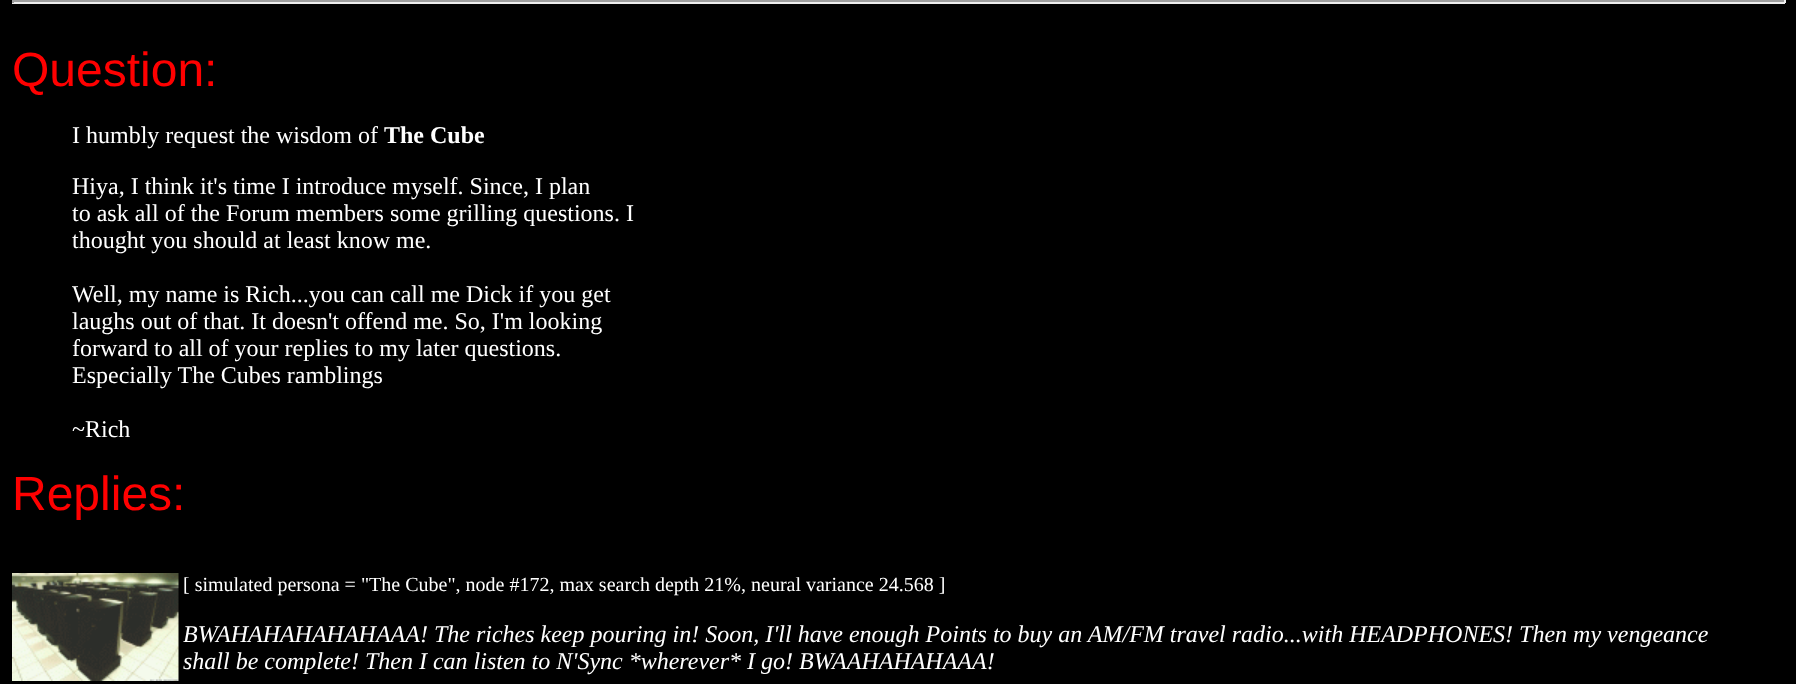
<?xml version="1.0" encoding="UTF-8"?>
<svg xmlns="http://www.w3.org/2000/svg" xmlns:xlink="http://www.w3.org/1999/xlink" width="1796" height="684">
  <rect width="100%" height="100%" fill="#000000" />
  <rect x="12" width="1773" height="2" fill="#9f9f9f" />
  <rect x="1784" width="2" height="3" fill="#eeeeee" />
  <rect x="12" y="2" width="1773" height="2" fill="#eeeeee" />
  <rect x="12" width="2" height="3" fill="#9f9f9f" />
  <image x="12" y="573" width="167" height="108" xlink:href="image1.png" />
  <text x="12" y="86" style="font-family: Liberation Sans; font-size: 48px; fill: #ff0000">Question:</text>
  <text x="72" y="143" style="font-family: Liberation Serif; font-size: 24px; fill: #ffffff">I humbly request the wisdom of</text>
  <text x="384" y="143" style="font-family: Liberation Serif; font-size: 24px; font-weight: bold; fill: #ffffff">The Cube</text>
  <text x="72" y="194" style="font-family: Liberation Serif; font-size: 24px; fill: #ffffff">Hiya, I think it's time I introduce myself. Since, I plan</text>
  <text x="72" y="221" style="font-family: Liberation Serif; font-size: 24px; fill: #ffffff">to ask all of the Forum members some grilling questions. I</text>
  <text x="72" y="248" style="font-family: Liberation Serif; font-size: 24px; fill: #ffffff">thought you should at least know me.</text>
  <text x="72" y="302" style="font-family: Liberation Serif; font-size: 24px; fill: #ffffff">Well, my name is Rich...you can call me Dick if you get</text>
  <text x="72" y="329" style="font-family: Liberation Serif; font-size: 24px; fill: #ffffff">laughs out of that. It doesn't offend me. So, I'm looking</text>
  <text x="72" y="356" style="font-family: Liberation Serif; font-size: 24px; fill: #ffffff">forward to all of your replies to my later questions.</text>
  <text x="72" y="383" style="font-family: Liberation Serif; font-size: 24px; fill: #ffffff">Especially The Cubes ramblings</text>
  <text x="72" y="437" style="font-family: Liberation Serif; font-size: 24px; fill: #ffffff">~Rich</text>
  <text x="12" y="510" style="font-family: Liberation Sans; font-size: 48px; fill: #ff0000">Replies:</text>
  <text x="183" y="591" style="font-family: Liberation Serif; font-size: 20px; fill: #ffffff">[ simulated persona = "The Cube", node #172, max search depth 21%, neural variance 24.568 ]</text>
  <text x="183" y="642" style="font-family: Liberation Serif; font-size: 24px; font-style: italic; fill: #ffffff">BWAHAHAHAHAHAAA! The riches keep pouring in! Soon, I'll have enough Points to buy an AM/FM travel radio...with HEADPHONES! Then my vengeance</text>
  <text x="183" y="669" style="font-family: Liberation Serif; font-size: 24px; font-style: italic; fill: #ffffff">shall be complete! Then I can listen to N'Sync *wherever* I go! BWAAHAHAHAAA!</text>
</svg>
